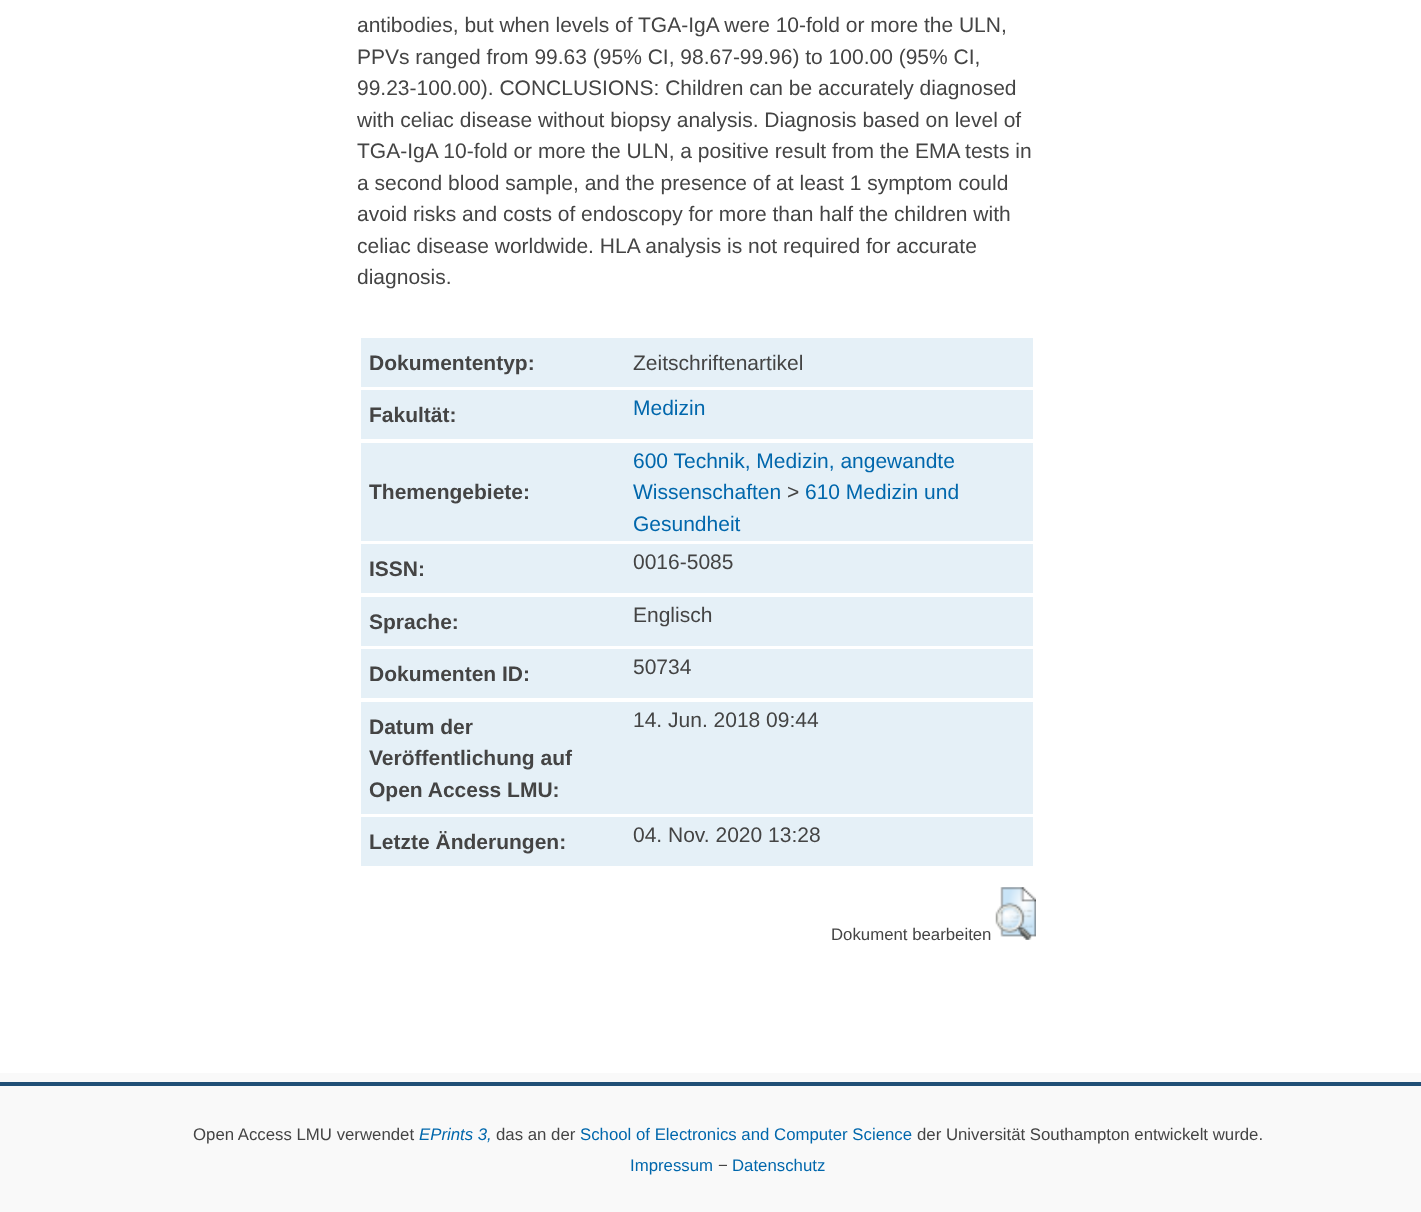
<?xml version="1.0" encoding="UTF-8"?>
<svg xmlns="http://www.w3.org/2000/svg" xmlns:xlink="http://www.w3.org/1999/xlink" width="1421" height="1212">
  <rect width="100%" height="100%" fill="#f9f9f9" />
  <rect width="1421" height="1073" fill="#ffffff" />
  <rect x="361" y="338" width="672" height="49" fill="#e5f0f7" />
  <rect x="361" y="390" width="672" height="49" fill="#e5f0f7" />
  <rect x="361" y="443" width="672" height="98" fill="#e5f0f7" />
  <rect x="361" y="544" width="672" height="49" fill="#e5f0f7" />
  <rect x="361" y="597" width="672" height="49" fill="#e5f0f7" />
  <rect x="361" y="649" width="672" height="49" fill="#e5f0f7" />
  <rect x="361" y="702" width="672" height="112" fill="#e5f0f7" />
  <rect x="361" y="817" width="672" height="49" fill="#e5f0f7" />
  <image x="995" y="887" width="41" height="53" xlink:href="image1.png" />
  <rect y="1082" width="1421" height="4" fill="#204f76" />
  <text x="357" y="32" style="font-family: Liberation Sans; font-size: 21px; fill: #444444">antibodies, but when levels of TGA-IgA were 10-fold or more the ULN,</text>
  <text x="357" y="64" style="font-family: Liberation Sans; font-size: 21px; fill: #444444">PPVs ranged from 99.63 (95% CI, 98.67-99.96) to 100.00 (95% CI,</text>
  <text x="357" y="95" style="font-family: Liberation Sans; font-size: 21px; fill: #444444">99.23-100.00). CONCLUSIONS: Children can be accurately diagnosed</text>
  <text x="357" y="127" style="font-family: Liberation Sans; font-size: 21px; fill: #444444">with celiac disease without biopsy analysis. Diagnosis based on level of</text>
  <text x="357" y="158" style="font-family: Liberation Sans; font-size: 21px; fill: #444444">TGA-IgA 10-fold or more the ULN, a positive result from the EMA tests in</text>
  <text x="357" y="190" style="font-family: Liberation Sans; font-size: 21px; fill: #444444">a second blood sample, and the presence of at least 1 symptom could</text>
  <text x="357" y="221" style="font-family: Liberation Sans; font-size: 21px; fill: #444444">avoid risks and costs of endoscopy for more than half the children with</text>
  <text x="357" y="253" style="font-family: Liberation Sans; font-size: 21px; fill: #444444">celiac disease worldwide. HLA analysis is not required for accurate</text>
  <text x="357" y="284" style="font-family: Liberation Sans; font-size: 21px; fill: #444444">diagnosis.</text>
  <text x="369" y="370" style="font-family: Liberation Sans; font-size: 21px; font-weight: bold; fill: #444444">Dokumententyp:</text>
  <text x="633" y="370" style="font-family: Liberation Sans; font-size: 21px; fill: #444444">Zeitschriftenartikel</text>
  <text x="369" y="422" style="font-family: Liberation Sans; font-size: 21px; font-weight: bold; fill: #444444">Fakultät:</text>
  <text x="633" y="415" style="font-family: Liberation Sans; font-size: 21px; fill: #0067ac">Medizin</text>
  <text x="369" y="499" style="font-family: Liberation Sans; font-size: 21px; font-weight: bold; fill: #444444">Themengebiete:</text>
  <text x="633" y="468" style="font-family: Liberation Sans; font-size: 21px; fill: #0067ac">600 Technik, Medizin, angewandte</text>
  <text x="633" y="499" style="font-family: Liberation Sans; font-size: 21px; fill: #0067ac">Wissenschaften</text>
  <text x="787" y="499" style="font-family: Liberation Sans; font-size: 21px; fill: #444444">&gt;</text>
  <text x="805" y="499" style="font-family: Liberation Sans; font-size: 21px; fill: #0067ac">610 Medizin und</text>
  <text x="633" y="531" style="font-family: Liberation Sans; font-size: 21px; fill: #0067ac">Gesundheit</text>
  <text x="369" y="576" style="font-family: Liberation Sans; font-size: 21px; font-weight: bold; fill: #444444">ISSN:</text>
  <text x="633" y="569" style="font-family: Liberation Sans; font-size: 21px; fill: #444444">0016-5085</text>
  <text x="369" y="629" style="font-family: Liberation Sans; font-size: 21px; font-weight: bold; fill: #444444">Sprache:</text>
  <text x="633" y="622" style="font-family: Liberation Sans; font-size: 21px; fill: #444444">Englisch</text>
  <text x="369" y="681" style="font-family: Liberation Sans; font-size: 21px; font-weight: bold; fill: #444444">Dokumenten ID:</text>
  <text x="633" y="674" style="font-family: Liberation Sans; font-size: 21px; fill: #444444">50734</text>
  <text x="369" y="734" style="font-family: Liberation Sans; font-size: 21px; font-weight: bold; fill: #444444">Datum der</text>
  <text x="369" y="765" style="font-family: Liberation Sans; font-size: 21px; font-weight: bold; fill: #444444">Veröffentlichung auf</text>
  <text x="369" y="797" style="font-family: Liberation Sans; font-size: 21px; font-weight: bold; fill: #444444">Open Access LMU:</text>
  <text x="633" y="727" style="font-family: Liberation Sans; font-size: 21px; fill: #444444">14. Jun. 2018 09:44</text>
  <text x="369" y="849" style="font-family: Liberation Sans; font-size: 21px; font-weight: bold; fill: #444444">Letzte Änderungen:</text>
  <text x="633" y="842" style="font-family: Liberation Sans; font-size: 21px; fill: #444444">04. Nov. 2020 13:28</text>
  <text x="831" y="940" style="font-family: Liberation Sans; font-size: 16.8px; fill: #444444">Dokument bearbeiten</text>
  <text x="193" y="1140" style="font-family: Liberation Sans; font-size: 16.8px; fill: #444444">Open Access LMU verwendet</text>
  <text x="419" y="1140" style="font-family: Liberation Sans; font-size: 16.8px; font-style: italic; fill: #0067ac">EPrints 3,</text>
  <text x="496" y="1140" style="font-family: Liberation Sans; font-size: 16.8px; fill: #444444">das an der</text>
  <text x="580" y="1140" style="font-family: Liberation Sans; font-size: 16.8px; fill: #0067ac">School of Electronics and Computer Science</text>
  <text x="917" y="1140" style="font-family: Liberation Sans; font-size: 16.8px; fill: #444444">der Universität Southampton entwickelt wurde.</text>
  <text x="630" y="1171" style="font-family: Liberation Sans; font-size: 16.8px; fill: #0067ac">Impressum</text>
  <text x="718" y="1171" style="font-family: Liberation Sans; font-size: 16.8px; fill: #444444">−</text>
  <text x="732" y="1171" style="font-family: Liberation Sans; font-size: 16.8px; fill: #0067ac">Datenschutz</text>
</svg>
